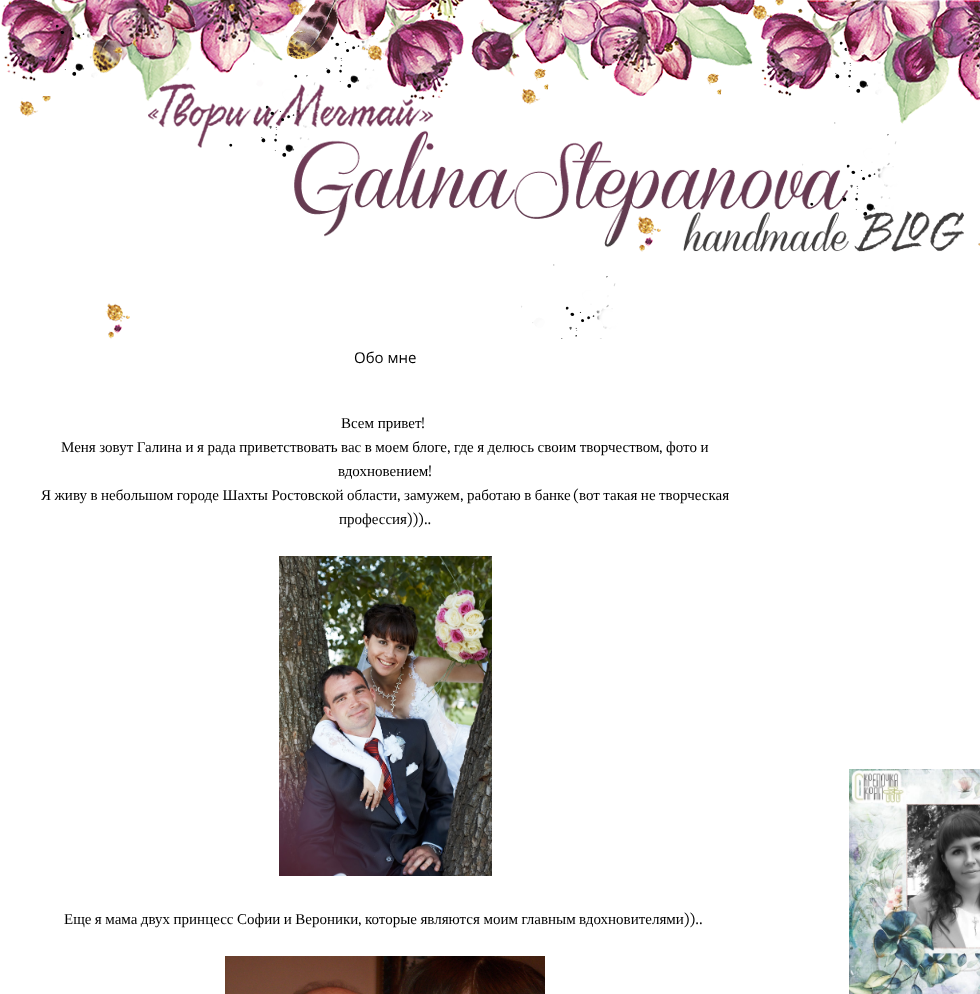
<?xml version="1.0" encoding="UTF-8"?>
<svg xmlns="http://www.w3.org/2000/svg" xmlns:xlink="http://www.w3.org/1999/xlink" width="980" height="994">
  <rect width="100%" height="100%" fill="#ffffff" />
  <image x="1" y="0" width="979" height="339" xlink:href="image1.png" />
  <image x="279" y="556" width="213" height="320" xlink:href="image2.png" />
  <image x="225" y="956" width="320" height="38" xlink:href="image3.png" />
  <image x="849" y="769" width="131" height="225" xlink:href="image4.png" />
  <text x="354" y="363" style="font-family: Open Sans; font-size: 15px; fill: #000000">Обо мне</text>
  <text x="341" y="428" style="font-family: Liberation Serif; font-size: 15px; fill: #000000">Всем привет</text>
  <text x="421" y="428" style="font-family: Lustria; font-size: 15px; fill: #000000">!</text>
  <text x="61" y="452" word-spacing="-0.25" style="font-family: Liberation Serif; font-size: 15px; fill: #000000">Меня зовут Галина и я рада приветствовать вас в моем блоге</text>
  <text x="447" y="452" style="font-family: Lustria; font-size: 15px; fill: #000000">,</text>
  <text x="454" y="452" word-spacing="-0.25" style="font-family: Liberation Serif; font-size: 15px; fill: #000000">где я делюсь своим творчеством</text>
  <text x="659" y="452" style="font-family: Lustria; font-size: 15px; fill: #000000">,</text>
  <text x="666" y="452" word-spacing="-0.25" style="font-family: Liberation Serif; font-size: 15px; fill: #000000">фото и</text>
  <text x="338" y="476" style="font-family: Liberation Serif; font-size: 15px; fill: #000000">вдохновением</text>
  <text x="428" y="476" style="font-family: Lustria; font-size: 15px; fill: #000000">!</text>
  <text x="41" y="500" word-spacing="-0.25" style="font-family: Liberation Serif; font-size: 15px; fill: #000000">Я живу в небольшом городе Шахты Ростовской области</text>
  <text x="397" y="500" style="font-family: Lustria; font-size: 15px; fill: #000000">,</text>
  <text x="404" y="500" style="font-family: Liberation Serif; font-size: 15px; fill: #000000">замужем</text>
  <text x="460" y="500" style="font-family: Lustria; font-size: 15px; fill: #000000">,</text>
  <text x="467" y="500" word-spacing="-0.25" style="font-family: Liberation Serif; font-size: 15px; fill: #000000">работаю в банке</text>
  <text x="573" y="500" style="font-family: Lustria; font-size: 15px; fill: #000000">(</text>
  <text x="579" y="500" word-spacing="-0.25" style="font-family: Liberation Serif; font-size: 15px; fill: #000000">вот такая не творческая</text>
  <text x="339" y="524" style="font-family: Liberation Serif; font-size: 15px; fill: #000000">профессия</text>
  <text x="407" y="524" style="font-family: Lustria; font-size: 15px; fill: #000000">)))..</text>
  <text x="64" y="924" word-spacing="-0.25" style="font-family: Liberation Serif; font-size: 15px; fill: #000000">Еще я мама двух принцесс Софии и Вероники</text>
  <text x="358" y="924" style="font-family: Lustria; font-size: 15px; fill: #000000">,</text>
  <text x="365" y="924" word-spacing="-0.25" style="font-family: Liberation Serif; font-size: 15px; fill: #000000">которые являются моим главным вдохновителями</text>
  <text x="684" y="924" style="font-family: Lustria; font-size: 15px; fill: #000000">))..</text>
</svg>
